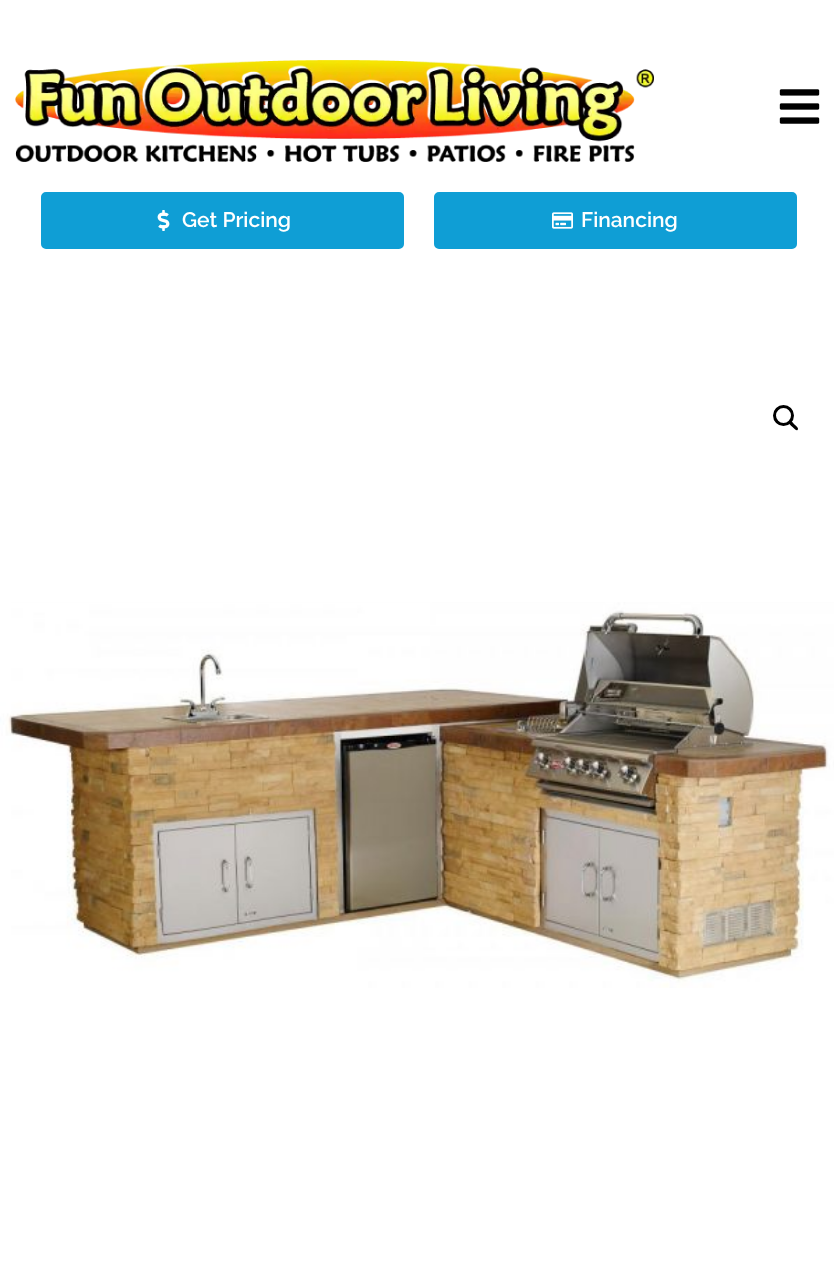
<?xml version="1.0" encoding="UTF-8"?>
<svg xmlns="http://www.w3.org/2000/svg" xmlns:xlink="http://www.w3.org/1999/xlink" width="836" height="1265">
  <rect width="100%" height="100%" fill="#ffffff" />
  <image x="15" y="60" width="639" height="102" xlink:href="image1.png" />
  <image x="779" y="89" width="41" height="35" xlink:href="image2.png" />
  <rect x="42.5" y="193.5" width="360" height="54" rx="3.5" fill="#0f9ed5" stroke="#0f9ed5" stroke-width="3" />
  <image x="157" y="210" width="13" height="21" xlink:href="image3.png" />
  <rect x="435.5" y="193.5" width="360" height="54" rx="3.5" fill="#0f9ed5" stroke="#0f9ed5" stroke-width="3" />
  <image x="552" y="212" width="21" height="17" xlink:href="image4.png" />
  <circle cx="783.5" cy="415.5" r="9" fill="none" stroke="#000000" stroke-width="3" />
  <path d="M 789.5 421.5 c 1.5 -2 4 2 5 3 c 1 1 5 3.5 3 5.5 c -1.5 1.5 -4 -2.5 -5 -3 c -1 -1 -5 -4 -3 -5.5 z" fill="#000000" />
  <image x="0" y="602" width="834" height="386" xlink:href="image5.png" />
  <text x="182" y="227" style="font-family: Raleway; font-size: 21px; font-weight: 600; fill: #ffffff">Get Pricing</text>
  <text x="581" y="227" style="font-family: Raleway; font-size: 21px; font-weight: 600; fill: #ffffff">Financing</text>
</svg>
